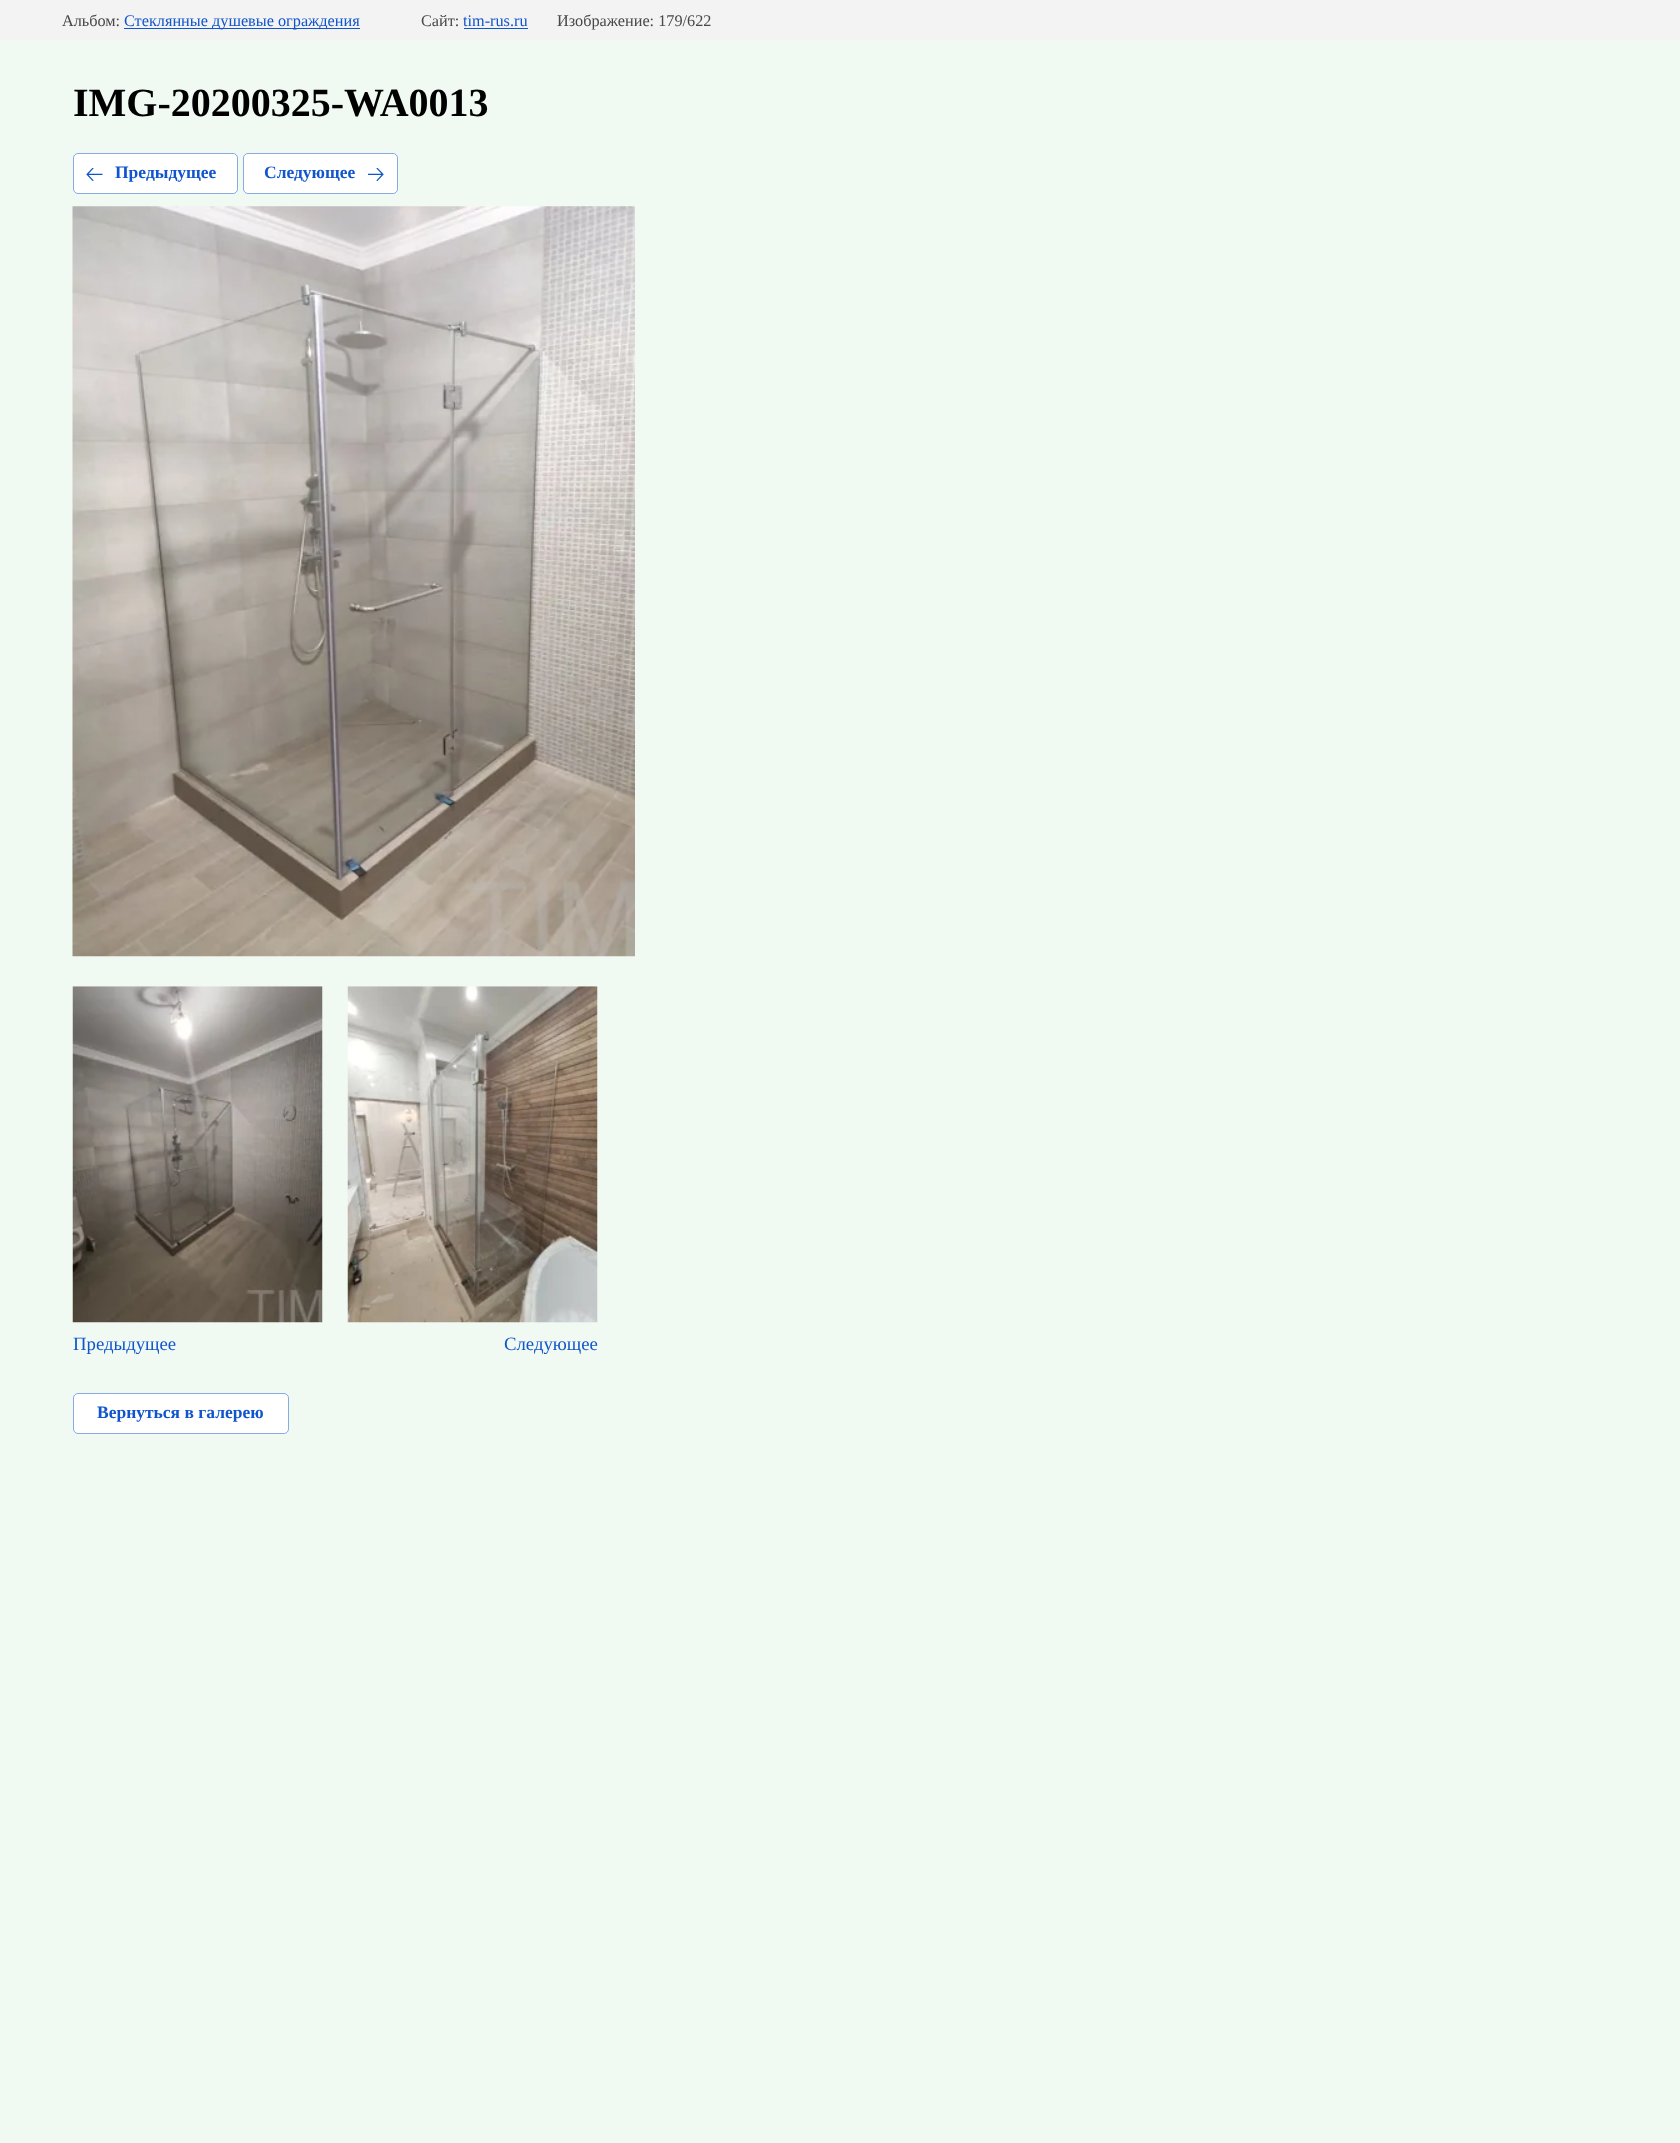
<?xml version="1.0" encoding="UTF-8"?>
<svg xmlns="http://www.w3.org/2000/svg" xmlns:xlink="http://www.w3.org/1999/xlink" width="1680" height="2143">
  <rect width="100%" height="100%" fill="#f0f9f2" />
  <rect width="1680" height="40" fill="#f3f3f3" />
  <rect x="124" y="28" width="236" height="1" fill="#1155cc" />
  <rect x="464" y="28" width="64" height="1" fill="#1155cc" />
  <rect x="73" y="153" width="165" height="41" rx="5" fill="#ffffff" />
  <rect x="73.5" y="153.5" width="164" height="40" rx="4.5" fill="none" stroke="#1155cc" stroke-opacity="0.5" />
  <image x="86" y="168" width="17" height="13" xlink:href="image1.png" />
  <rect x="243" y="153" width="155" height="41" rx="5" fill="#ffffff" />
  <rect x="243.5" y="153.5" width="154" height="40" rx="4.5" fill="none" stroke="#1155cc" stroke-opacity="0.5" />
  <image x="368" y="168" width="16" height="13" xlink:href="image2.png" />
  <image x="72" y="206" width="563" height="751" xlink:href="image3.png" />
  <image x="72" y="986" width="251" height="337" xlink:href="image4.png" />
  <image x="347" y="986" width="251" height="337" xlink:href="image5.png" />
  <rect x="73" y="1393" width="216" height="41" rx="5" fill="#ffffff" />
  <rect x="73.5" y="1393.5" width="215" height="40" rx="4.5" fill="none" stroke="#1155cc" stroke-opacity="0.5" />
  <text x="62" y="26" style="font-family: Liberation Serif; font-size: 16.25px; fill: #484848">Альбом:</text>
  <text x="124" y="26" style="font-family: Liberation Serif; font-size: 16.25px; fill: #1155cc">Стеклянные душевые ограждения</text>
  <text x="421" y="26" style="font-family: Liberation Serif; font-size: 16.25px; fill: #484848">Сайт:</text>
  <text x="463" y="26" style="font-family: Liberation Serif; font-size: 16.25px; fill: #1155cc">tim-rus.ru</text>
  <text x="557" y="26" style="font-family: Liberation Serif; font-size: 16.25px; fill: #484848">Изображение: 179/622</text>
  <text x="73" y="116" style="font-family: Liberation Serif; font-size: 40px; font-weight: bold; fill: #000000">IMG-20200325-WA0013</text>
  <text x="115" y="178" style="font-family: Liberation Serif; font-size: 17.5px; font-weight: bold; fill: #1155cc">Предыдущее</text>
  <text x="264" y="178" style="font-family: Liberation Serif; font-size: 17.5px; font-weight: bold; fill: #1155cc">Следующее</text>
  <text x="73" y="1350" style="font-family: Liberation Serif; font-size: 18.75px; fill: #1155cc">Предыдущее</text>
  <text x="504" y="1350" style="font-family: Liberation Serif; font-size: 18.75px; fill: #1155cc">Следующее</text>
  <text x="97" y="1418" style="font-family: Liberation Serif; font-size: 17.5px; font-weight: bold; fill: #1155cc">Вернуться в галерею</text>
</svg>
